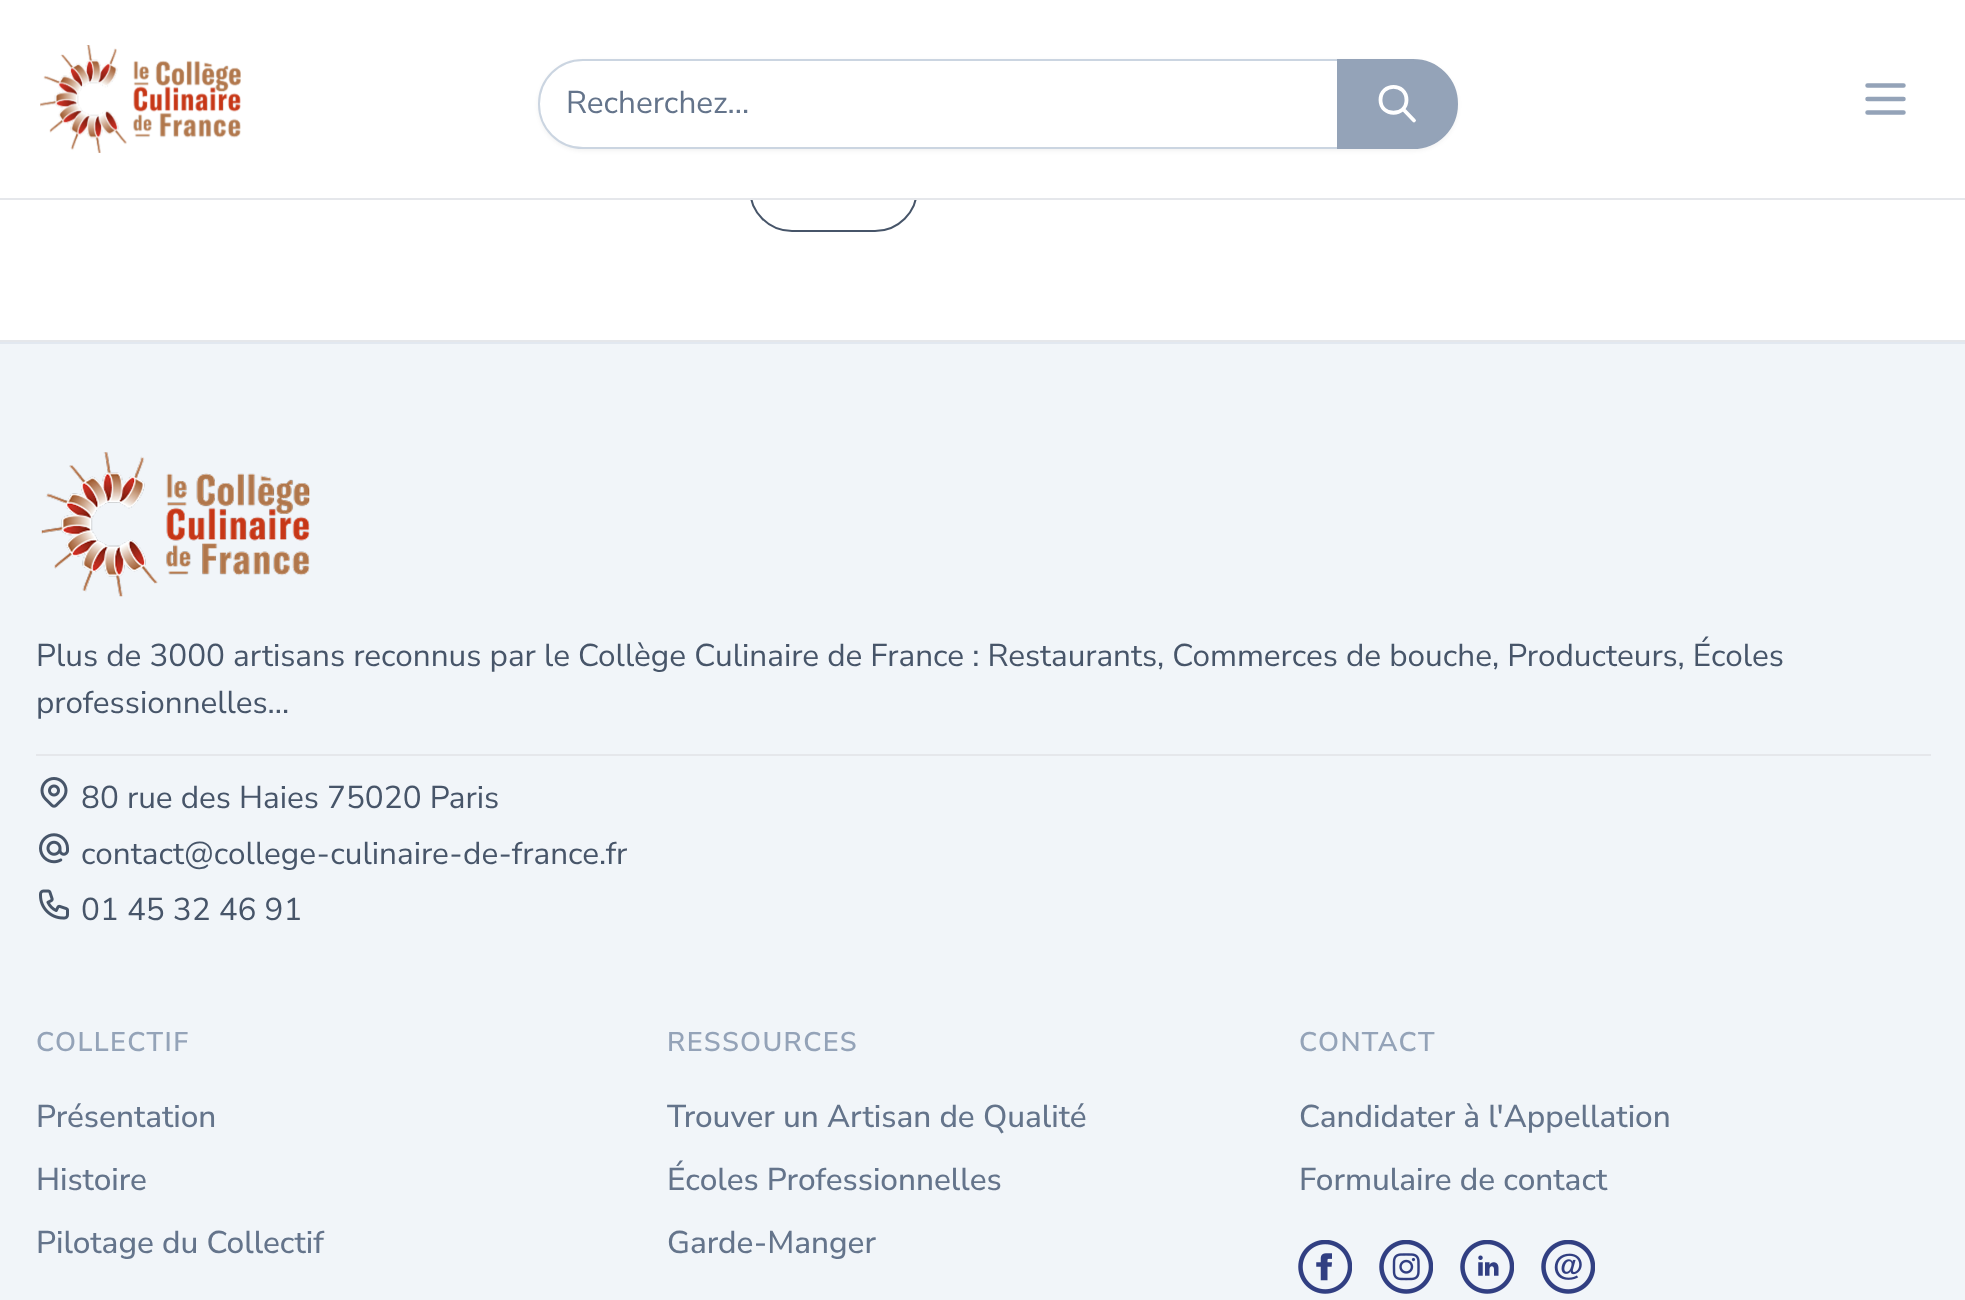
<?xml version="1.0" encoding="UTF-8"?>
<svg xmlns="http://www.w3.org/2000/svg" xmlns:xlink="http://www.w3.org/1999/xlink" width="1965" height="1300">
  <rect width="100%" height="100%" fill="#ffffff" />
  <rect x="750" y="147" width="167" height="84" rx="42" fill="none" stroke="#475569" stroke-width="2" />
  <rect x="749" y="146" width="169" height="52" fill="#ffffff" />
  <rect y="198" width="1965" height="2" fill="#e5e7eb" />
  <image x="40" y="45" width="201" height="108" xlink:href="image1.png" />
  <rect x="538" y="61" width="920" height="90" rx="45" fill="#000000" fill-opacity="0.05" filter="blur(2px)" />
  <path d="M 583 60 h 755 v 88 h -755 c -24.5 0 -44 -19.5 -44 -44 c 0 -24.5 19.5 -44 44 -44 z" fill="#ffffff" stroke="#cbd5e1" stroke-width="2" />
  <path d="M 1338 60 h 75 c 24.5 0 44 19.5 44 44 c 0 24.5 -19.5 44 -44 44 h -75 z" fill="#94a3b8" stroke="#94a3b8" stroke-width="2" />
  <path d="M 1414 120.5 l -11 -11.5 m 3.5 -9 c 0 17 -26 17 -26 0 c 0 -17.5 26 -17.5 26 0 z" fill="none" stroke="#ffffff" stroke-width="3.8" stroke-linecap="round" stroke-linejoin="round" />
  <path d="M 1867.5 85.5 h 36 m -36 13.5 h 36 m -36 13.5 h 36" fill="none" stroke="#94a3b8" stroke-width="4.5" stroke-linecap="round" stroke-linejoin="round" />
  <rect y="340" width="1965" height="2" fill="#e5e7eb" />
  <rect y="344" width="1965" height="956" fill="#f1f5f9" />
  <rect y="342" width="1965" height="2" fill="#e2e8f0" />
  <image x="41" y="452" width="269" height="145" xlink:href="image2.png" />
  <rect x="36" y="754" width="1895" height="2" fill="#e5e7eb" />
  <image x="40" y="777" width="28" height="31" xlink:href="image3.png" />
  <image x="39" y="833" width="30" height="31" xlink:href="image4.png" />
  <image x="39" y="889" width="30" height="31" xlink:href="image5.png" />
  <image x="1298" y="1240" width="54" height="54" xlink:href="image6.png" />
  <image x="1379" y="1240" width="54" height="54" xlink:href="image7.png" />
  <image x="1460" y="1240" width="54" height="54" xlink:href="image8.png" />
  <image x="1541" y="1240" width="54" height="54" xlink:href="image9.png" />
  <text x="566" y="113" style="font-family: Nunito Sans; font-size: 31.5px; fill: #64748b">Recherchez...</text>
  <text x="36" y="666" style="font-family: Nunito Sans; font-size: 31.5px; fill: #475569">Plus de 3000 artisans reconnus par le Collège Culinaire de France : Restaurants, Commerces de bouche, Producteurs, Écoles</text>
  <text x="36" y="713" style="font-family: Nunito Sans; font-size: 31.5px; fill: #475569">professionnelles...</text>
  <text x="81" y="808" style="font-family: Nunito Sans; font-size: 31.5px; fill: #475569">80 rue des Haies 75020 Paris</text>
  <text x="81" y="864" style="font-family: Nunito Sans; font-size: 31.5px; fill: #475569">contact@college-culinaire-de-france.fr</text>
  <text x="81" y="920" style="font-family: Nunito Sans; font-size: 31.5px; fill: #475569">01 45 32 46 91</text>
  <text x="36" y="1051" style="font-family: Nunito Sans; font-size: 27px; font-weight: 600; letter-spacing: 1.4px; fill: #94a3b8">COLLECTIF</text>
  <text x="36" y="1127" style="font-family: Nunito Sans; font-size: 31.5px; font-weight: 500; fill: #64748b">Présentation</text>
  <text x="36" y="1190" style="font-family: Nunito Sans; font-size: 31.5px; font-weight: 500; fill: #64748b">Histoire</text>
  <text x="36" y="1253" style="font-family: Nunito Sans; font-size: 31.5px; font-weight: 500; fill: #64748b">Pilotage du Collectif</text>
  <text x="667" y="1051" style="font-family: Nunito Sans; font-size: 27px; font-weight: 600; letter-spacing: 1.4px; fill: #94a3b8">RESSOURCES</text>
  <text x="667" y="1127" style="font-family: Nunito Sans; font-size: 31.5px; font-weight: 500; fill: #64748b">Trouver un Artisan de Qualité</text>
  <text x="667" y="1190" style="font-family: Nunito Sans; font-size: 31.5px; font-weight: 500; fill: #64748b">Écoles Professionnelles</text>
  <text x="667" y="1253" style="font-family: Nunito Sans; font-size: 31.5px; font-weight: 500; fill: #64748b">Garde-Manger</text>
  <text x="1299" y="1051" style="font-family: Nunito Sans; font-size: 27px; font-weight: 600; letter-spacing: 1.4px; fill: #94a3b8">CONTACT</text>
  <text x="1299" y="1127" style="font-family: Nunito Sans; font-size: 31.5px; font-weight: 500; fill: #64748b">Candidater à l'Appellation</text>
  <text x="1299" y="1190" style="font-family: Nunito Sans; font-size: 31.5px; font-weight: 500; fill: #64748b">Formulaire de contact</text>
</svg>
